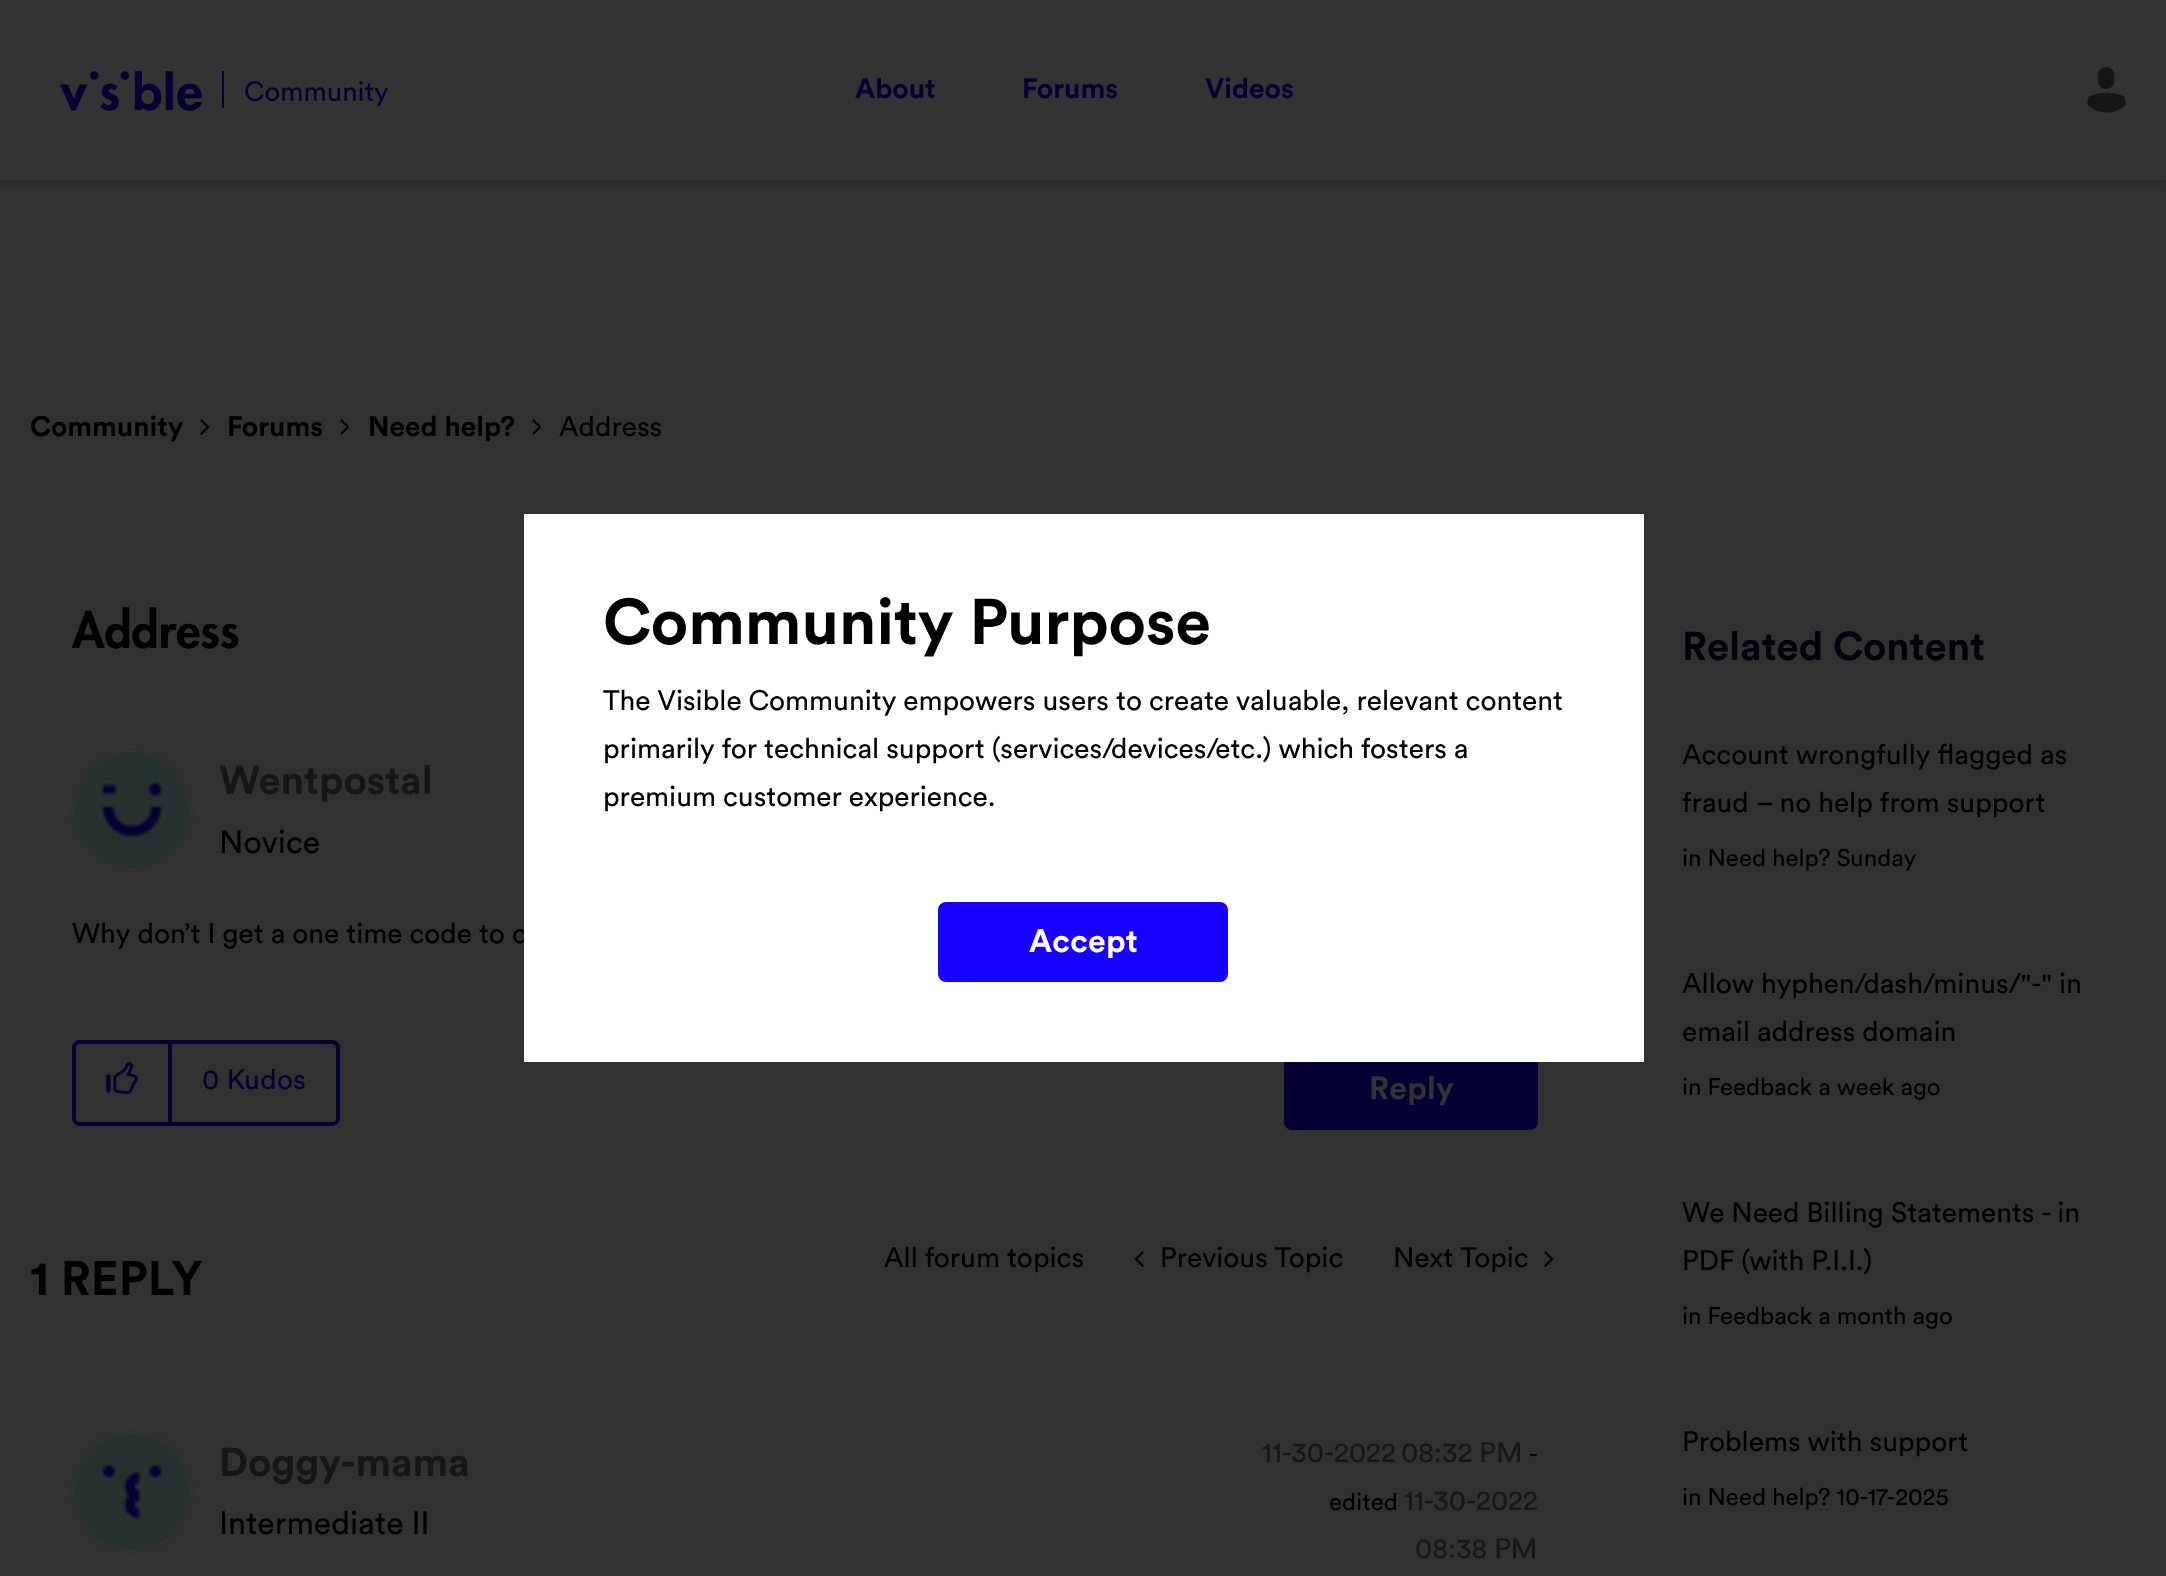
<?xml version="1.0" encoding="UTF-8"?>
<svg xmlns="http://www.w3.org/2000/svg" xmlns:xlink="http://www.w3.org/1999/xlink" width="2166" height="1576">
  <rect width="100%" height="100%" fill="#313132" />
  <rect x="2" y="6" width="2162" height="176" fill="#000000" fill-opacity="0.25" filter="blur(4px)" />
  <rect width="2166" height="180" fill="#333333" />
  <image x="60" y="71" width="329" height="40" xlink:href="image1.png" />
  <image x="2087" y="67" width="39" height="46" xlink:href="image2.png" />
  <image x="200" y="419" width="10" height="16" xlink:href="image3.png" />
  <image x="340" y="419" width="10" height="16" xlink:href="image3.png" />
  <image x="532" y="419" width="10" height="16" xlink:href="image3.png" />
  <rect x="72" y="750" width="120" height="120" rx="60" fill="#272727" filter="blur(1px)" />
  <circle cx="132" cy="810" r="59" fill="none" stroke="#333333" stroke-width="2" />
  <image x="74" y="752" width="116" height="116" xlink:href="image4.png" />
  <rect x="74" y="1042" width="264" height="82" rx="6" fill="none" stroke="#050033" stroke-width="4" />
  <rect x="168" y="1044" width="4" height="78" fill="#050033" />
  <image x="106" y="1062" width="32" height="32" xlink:href="image5.png" />
  <rect x="1286" y="1052" width="250" height="76" rx="6" fill="#050033" stroke="#050033" stroke-width="4" />
  <image x="1134" y="1251" width="10" height="16" xlink:href="image6.png" />
  <image x="1544" y="1251" width="10" height="16" xlink:href="image3.png" />
  <rect x="72" y="1432" width="120" height="120" rx="60" fill="#272727" filter="blur(1px)" />
  <circle cx="132" cy="1492" r="59" fill="none" stroke="#333333" stroke-width="2" />
  <image x="74" y="1434" width="116" height="116" xlink:href="image7.png" />
  <text x="855" y="98" style="font-family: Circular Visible; font-size: 28px; font-weight: bold; fill: #050033">About</text>
  <text x="1022" y="98" style="font-family: Circular Visible; font-size: 28px; font-weight: bold; fill: #050033">Forums</text>
  <text x="1205" y="98" style="font-family: Circular Visible; font-size: 28px; font-weight: bold; fill: #050033">Videos</text>
  <text x="30" y="436" style="font-family: Circular Visible; font-size: 28px; font-weight: bold; fill: #000000">Community</text>
  <text x="227" y="436" style="font-family: Circular Visible; font-size: 28px; font-weight: bold; fill: #000000">Forums</text>
  <text x="368" y="436" style="font-family: Circular Visible; font-size: 28px; font-weight: bold; fill: #000000">Need help?</text>
  <text x="559" y="436" style="font-family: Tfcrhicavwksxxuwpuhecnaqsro; font-size: 28px; fill: #000000">Address</text>
  <text x="72" y="648" style="font-family: Futura; font-size: 48px; font-weight: 900; fill: #000000">Address</text>
  <text x="219" y="794" style="font-family: Circular Visible; font-size: 40px; font-weight: bold; fill: #161616">Wentpostal</text>
  <text x="219" y="853" style="font-family: Tfcrhicavwksxxuwpuhecnaqsro; font-size: 32px; fill: #000000">Novice</text>
  <text x="72" y="943" style="font-family: Tfcrhicavwksxxuwpuhecnaqsro; font-size: 28px; fill: #000000">Why don’t I get a one time code to c</text>
  <text x="202" y="1089" style="font-family: Tfcrhicavwksxxuwpuhecnaqsro; font-size: 28px; letter-spacing: 0.25px; fill: #050033">0 Kudos</text>
  <text x="1369" y="1099" style="font-family: Circular Visible; font-size: 32px; font-weight: bold; letter-spacing: 0.25px; fill: #333333">Reply</text>
  <text x="30" y="1295" style="font-family: Circular Visible; font-size: 48px; font-weight: bold; fill: #000000">1 REPLY</text>
  <text x="884" y="1267" style="font-family: Tfcrhicavwksxxuwpuhecnaqsro; font-size: 28px; fill: #000000">All forum topics</text>
  <text x="1160" y="1267" style="font-family: Tfcrhicavwksxxuwpuhecnaqsro; font-size: 28px; fill: #000000">Previous Topic</text>
  <text x="1393" y="1267" style="font-family: Tfcrhicavwksxxuwpuhecnaqsro; font-size: 28px; fill: #000000">Next Topic</text>
  <text x="219" y="1476" style="font-family: Circular Visible; font-size: 40px; font-weight: bold; fill: #161616">Doggy-mama</text>
  <text x="219" y="1534" style="font-family: Tfcrhicavwksxxuwpuhecnaqsro; font-size: 32px; fill: #000000">Intermediate II</text>
  <text x="1262" y="1462" style="font-family: Tfcrhicavwksxxuwpuhecnaqsro; font-size: 28px; fill: #161616">11-30-2022</text>
  <text x="1401" y="1462" style="font-family: Tfcrhicavwksxxuwpuhecnaqsro; font-size: 28px; fill: #161616">08:32 PM</text>
  <text x="1529" y="1462" style="font-family: Tfcrhicavwksxxuwpuhecnaqsro; font-size: 24px; fill: #000000">-</text>
  <text x="1329" y="1510" style="font-family: Tfcrhicavwksxxuwpuhecnaqsro; font-size: 24px; fill: #000000">edited</text>
  <text x="1404" y="1510" style="font-family: Tfcrhicavwksxxuwpuhecnaqsro; font-size: 28px; fill: #161616">11-30-2022</text>
  <text x="1415" y="1558" style="font-family: Tfcrhicavwksxxuwpuhecnaqsro; font-size: 28px; fill: #161616">08:38 PM</text>
  <text x="1682" y="660" style="font-family: Circular Visible; font-size: 40px; font-weight: bold; fill: #00030e">Related Content</text>
  <text x="1682" y="764" style="font-family: Tfcrhicavwksxxuwpuhecnaqsro; font-size: 28px; fill: #000000">Account wrongfully flagged as</text>
  <text x="1682" y="812" style="font-family: Tfcrhicavwksxxuwpuhecnaqsro; font-size: 28px; fill: #000000">fraud – no help from support</text>
  <text x="1682" y="866" style="font-family: Tfcrhicavwksxxuwpuhecnaqsro; font-size: 24px; fill: #000000">in Need help? Sunday</text>
  <text x="1682" y="993" style="font-family: Tfcrhicavwksxxuwpuhecnaqsro; font-size: 28px; fill: #000000">Allow hyphen/dash/minus/"-" in</text>
  <text x="1682" y="1041" style="font-family: Tfcrhicavwksxxuwpuhecnaqsro; font-size: 28px; fill: #000000">email address domain</text>
  <text x="1682" y="1095" style="font-family: Tfcrhicavwksxxuwpuhecnaqsro; font-size: 24px; fill: #000000">in Feedback a week ago</text>
  <text x="1682" y="1222" style="font-family: Tfcrhicavwksxxuwpuhecnaqsro; font-size: 28px; fill: #000000">We Need Billing Statements - in</text>
  <text x="1682" y="1270" style="font-family: Tfcrhicavwksxxuwpuhecnaqsro; font-size: 28px; fill: #000000">PDF (with P.I.I.)</text>
  <text x="1682" y="1324" style="font-family: Tfcrhicavwksxxuwpuhecnaqsro; font-size: 24px; fill: #000000">in Feedback a month ago</text>
  <text x="1682" y="1451" style="font-family: Tfcrhicavwksxxuwpuhecnaqsro; font-size: 28px; fill: #000000">Problems with support</text>
  <text x="1682" y="1505" style="font-family: Tfcrhicavwksxxuwpuhecnaqsro; font-size: 24px; fill: #000000">in Need help? 10-17-2025</text>
  <rect x="524" y="514" width="1120" height="548" fill="#ffffff" />
  <text x="603" y="644" style="font-family: Circular Visible; font-size: 64px; font-weight: bold; fill: #000000">Community Purpose</text>
  <text x="603" y="710" style="font-family: Tfcrhicavwksxxuwpuhecnaqsro; font-size: 28px; fill: #000000">The Visible Community empowers users to create valuable, relevant content</text>
  <text x="603" y="758" style="font-family: Tfcrhicavwksxxuwpuhecnaqsro; font-size: 28px; fill: #000000">primarily for technical support (services/devices/etc.) which fosters a</text>
  <text x="603" y="806" style="font-family: Tfcrhicavwksxxuwpuhecnaqsro; font-size: 28px; fill: #000000">premium customer experience.</text>
  <rect x="940" y="904" width="286" height="76" rx="6" fill="#1800ff" stroke="#1800ff" stroke-width="4" />
  <text x="1029" y="952" style="font-family: Circular Visible; font-size: 32px; font-weight: bold; letter-spacing: 0.25px; fill: #ffffff">Accept</text>
</svg>
